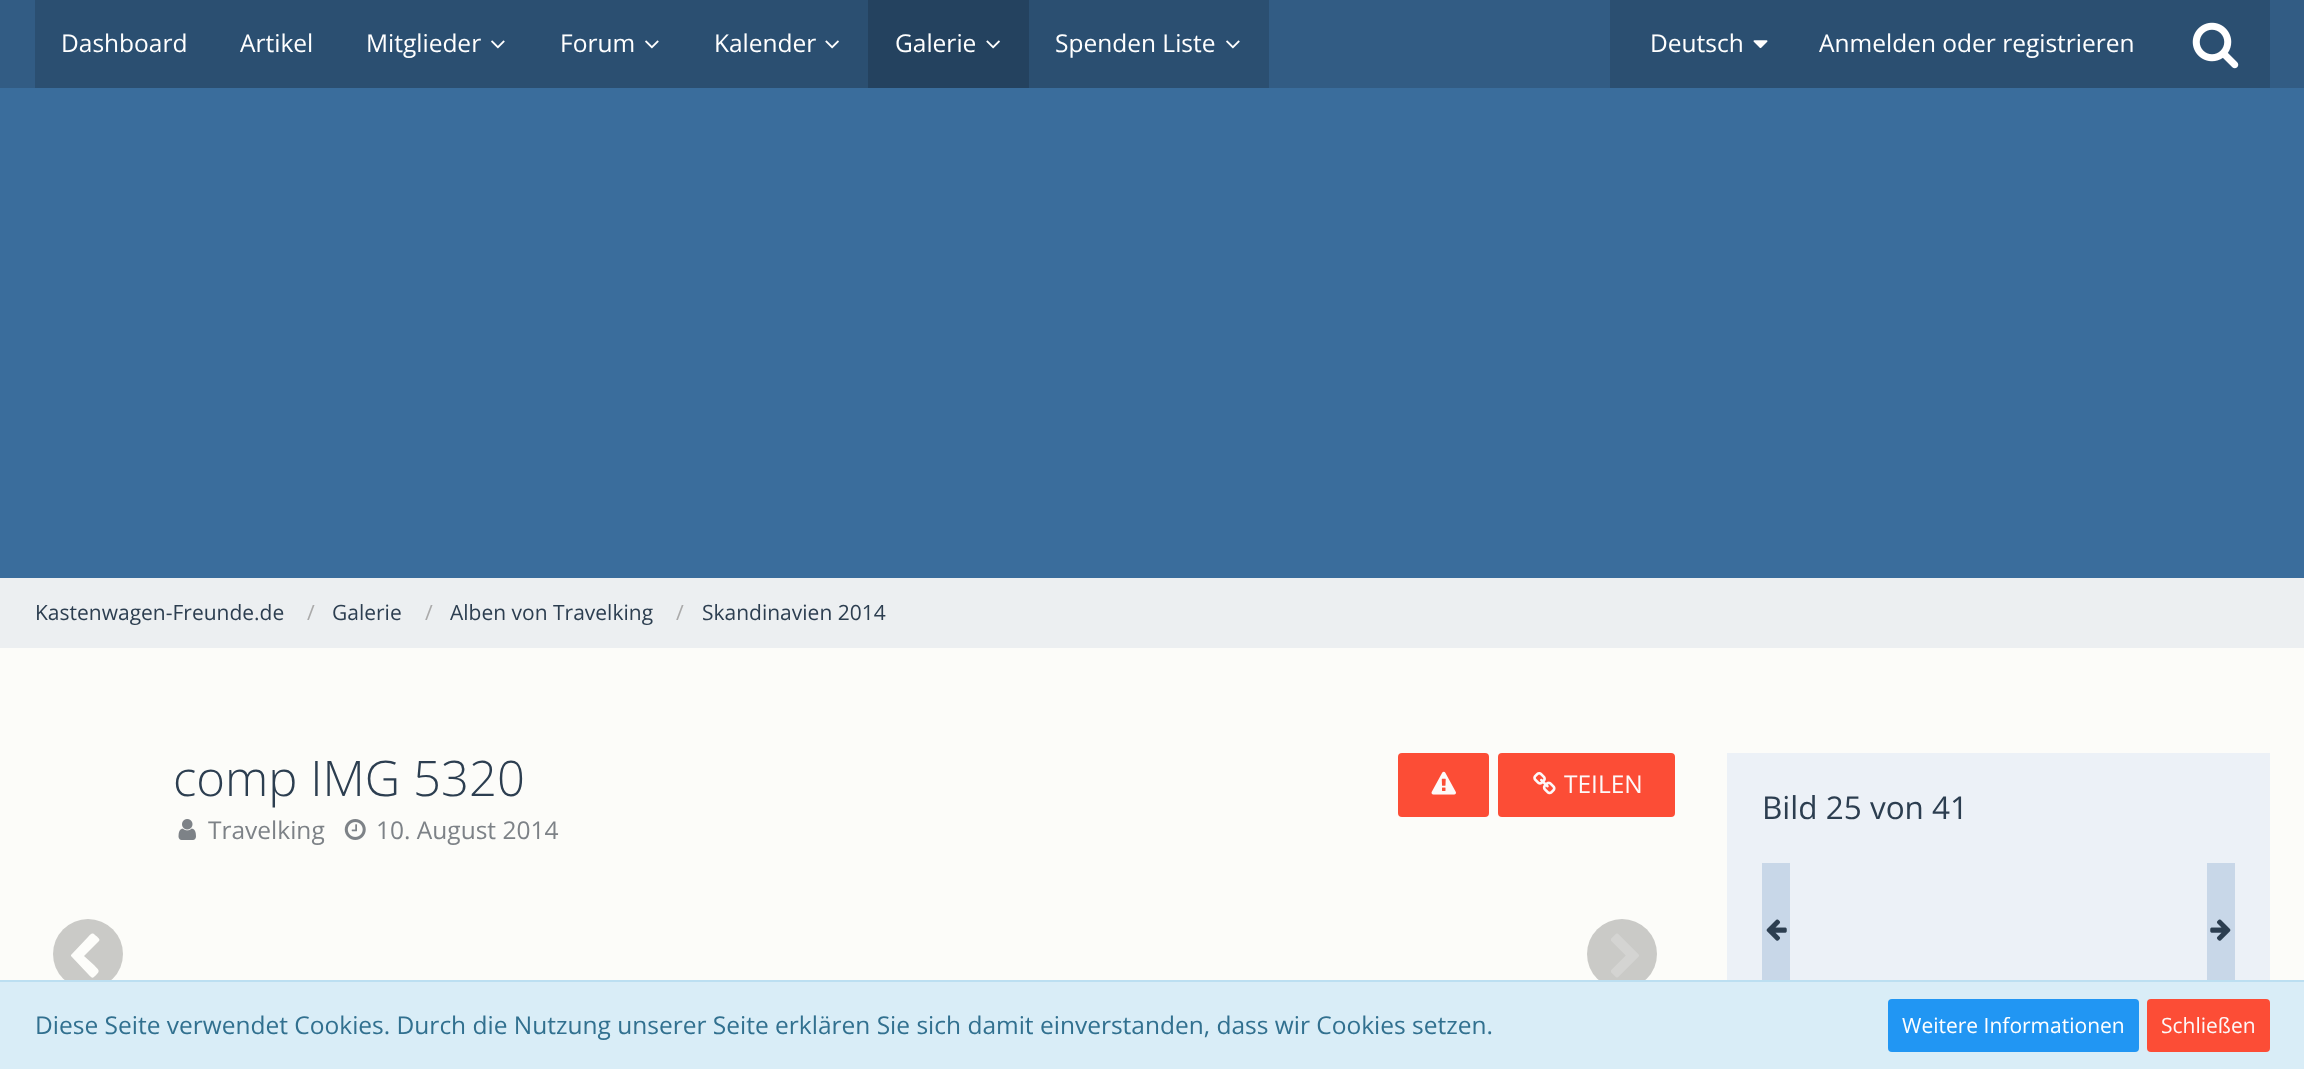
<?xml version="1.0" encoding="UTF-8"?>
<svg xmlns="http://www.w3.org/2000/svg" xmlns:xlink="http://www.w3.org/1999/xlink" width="2304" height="1069">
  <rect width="100%" height="100%" fill="#fcfcf9" />
  <rect y="88" width="2304" height="490" fill="#3a6d9c" />
  <rect width="2304" height="88" fill="#325c84" />
  <rect x="35" width="833" height="88" fill="#2b4f71" />
  <image x="491" y="40" width="14" height="9" xlink:href="image1.png" />
  <image x="645" y="40" width="14" height="9" xlink:href="image1.png" />
  <image x="825" y="40" width="14" height="9" xlink:href="image2.png" />
  <rect x="868" width="161" height="88" fill="#24425f" />
  <image x="986" y="40" width="14" height="9" xlink:href="image3.png" />
  <rect x="1029" width="240" height="88" fill="#2b4f71" />
  <image x="1226" y="40" width="14" height="9" xlink:href="image1.png" />
  <rect x="1610" width="660" height="88" fill="#2b4f71" />
  <image x="1753" y="40" width="15" height="9" xlink:href="image4.png" />
  <image x="2192" y="22" width="47" height="47" xlink:href="image5.png" />
  <rect y="578" width="2304" height="70" fill="#eceff1" />
  <image x="178" y="819" width="18" height="21" xlink:href="image6.png" />
  <image x="344" y="819" width="22" height="21" xlink:href="image7.png" />
  <rect x="1398" y="753" width="91" height="64" rx="4" fill="#fc4d36" />
  <image x="1431" y="771" width="25" height="24" xlink:href="image8.png" />
  <rect x="1498" y="753" width="177" height="64" rx="4" fill="#fc4d36" />
  <image x="1533" y="772" width="23" height="23" xlink:href="image9.png" />
  <circle cx="88" cy="954" r="35" fill="#cacac7" />
  <path d="M 99 941 c 2 -2 -3 -5 -4 -6 c -3 -3 -4 -1 -7 2 l -17 18 v 1 l 17 18 c 5 5 4 5 9 0 c 4 -4 0 -5 -3 -9 l -10 -9 z" fill="#fdfdfa" />
  <circle cx="1622" cy="954" r="35" fill="#cacac7" />
  <image x="1611" y="933" width="28" height="45" xlink:href="image10.png" />
  <rect x="1727" y="753" width="543" height="227" fill="#ecf1f7" />
  <rect x="1762" y="863" width="28" height="117" fill="#c8d7e8" />
  <image x="1766" y="919" width="21" height="22" xlink:href="image11.png" />
  <rect x="2207" y="863" width="28" height="117" fill="#c8d7e8" />
  <image x="2210" y="919" width="21" height="22" xlink:href="image12.png" />
  <rect y="982" width="2304" height="87" fill="#d9edf7" />
  <rect y="980" width="2304" height="2" fill="#bcdff1" />
  <rect x="1888" y="999" width="251" height="53" rx="4" fill="#2196f3" />
  <rect x="2147" y="999" width="123" height="53" rx="4" fill="#fc4d36" />
  <text x="61" y="52" style="font-family: Open Sans; font-size: 24.5px; fill: #ffffff">Dashboard</text>
  <text x="240" y="52" style="font-family: Open Sans; font-size: 24.5px; fill: #ffffff">Artikel</text>
  <text x="366" y="52" style="font-family: Open Sans; font-size: 24.5px; fill: #ffffff">Mitglieder</text>
  <text x="560" y="52" style="font-family: Open Sans; font-size: 24.5px; fill: #ffffff">Forum</text>
  <text x="714" y="52" style="font-family: Open Sans; font-size: 24.5px; fill: #ffffff">Kalender</text>
  <text x="895" y="52" style="font-family: Open Sans; font-size: 24.5px; fill: #ffffff">Galerie</text>
  <text x="1055" y="52" style="font-family: Open Sans; font-size: 24.5px; fill: #ffffff">Spenden Liste</text>
  <text x="1650" y="52" style="font-family: Open Sans; font-size: 24.5px; fill: #ffffff">Deutsch</text>
  <text x="1819" y="52" style="font-family: Open Sans; font-size: 24.5px; fill: #ffffff">Anmelden oder registrieren</text>
  <text x="35" y="620" style="font-family: Open Sans; font-size: 21px; fill: #2c3e50">Kastenwagen-Freunde.de</text>
  <text x="307" y="620" style="font-family: Open Sans; font-size: 21px; fill: #aaaaaa">/</text>
  <text x="332" y="620" style="font-family: Open Sans; font-size: 21px; fill: #2c3e50">Galerie</text>
  <text x="425" y="620" style="font-family: Open Sans; font-size: 21px; fill: #aaaaaa">/</text>
  <text x="450" y="620" style="font-family: Open Sans; font-size: 21px; fill: #2c3e50">Alben von Travelking</text>
  <text x="676" y="620" style="font-family: Open Sans; font-size: 21px; fill: #aaaaaa">/</text>
  <text x="702" y="620" style="font-family: Open Sans; font-size: 21px; fill: #2c3e50">Skandinavien 2014</text>
  <text x="173" y="796" style="font-family: Open Sans; font-size: 49px; font-weight: 300; fill: #2c3e50">comp IMG 5320</text>
  <text x="208" y="839" style="font-family: Open Sans; font-size: 24.5px; fill: #7d8287">Travelking</text>
  <text x="376" y="839" style="font-family: Open Sans; font-size: 24.5px; fill: #7d8287">10. August 2014</text>
  <text x="1564" y="793" style="font-family: Open Sans; font-size: 24.5px; fill: #fdf9f9">TEILEN</text>
  <text x="1762" y="819" style="font-family: Open Sans; font-size: 31.5px; fill: #2c3e50">Bild 25 von 41</text>
  <text x="35" y="1034" style="font-family: Open Sans; font-size: 24.5px; fill: #31708f">Diese Seite verwendet Cookies. Durch die Nutzung unserer Seite erklären Sie sich damit einverstanden, dass wir Cookies setzen.</text>
  <text x="1902" y="1033" style="font-family: Open Sans; font-size: 21px; fill: #ffffff">Weitere Informationen</text>
  <text x="2161" y="1033" style="font-family: Open Sans; font-size: 21px; fill: #fdf9f9">Schließen</text>
</svg>
